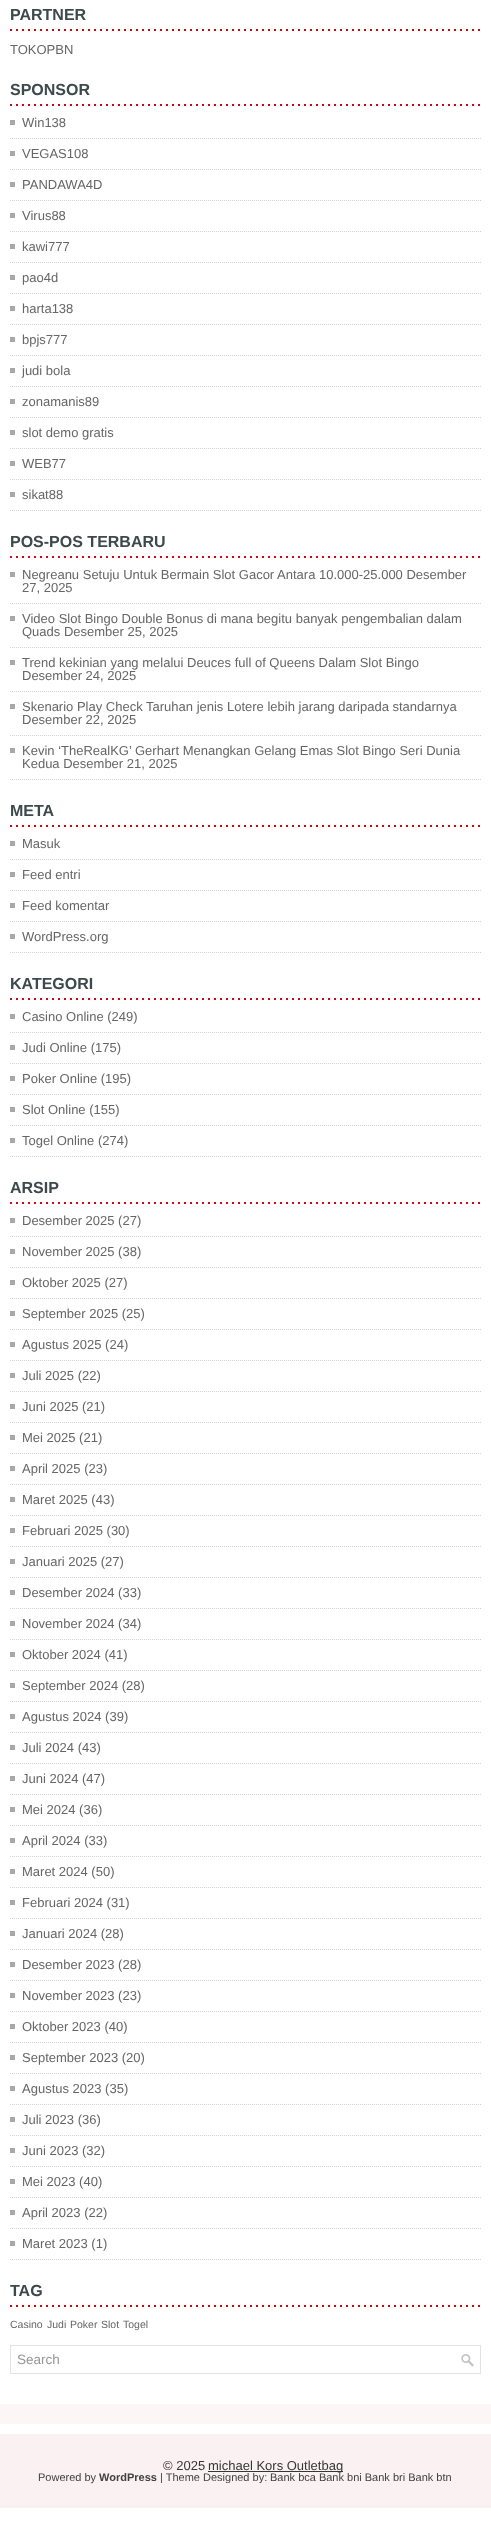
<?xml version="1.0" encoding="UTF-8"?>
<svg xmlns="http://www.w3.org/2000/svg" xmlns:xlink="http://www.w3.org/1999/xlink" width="491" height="2523">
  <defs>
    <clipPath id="clip1"><rect x="38" y="2472" width="415" height="11" /></clipPath>
  </defs>
  <rect width="100%" height="100%" fill="#ffffff" />
  <image x="10" y="29" width="470" height="2" xlink:href="image1.png" />
  <image x="10" y="104" width="470" height="2" xlink:href="image1.png" />
  <rect x="10" y="120" width="5" height="5" fill="#aaa7a7" />
  <path d="M 10 138.5 h 471" fill="none" stroke="#d3d1d1" stroke-dasharray="1 1" />
  <rect x="10" y="151" width="5" height="5" fill="#aaa7a7" />
  <path d="M 10 169.5 h 471" fill="none" stroke="#d3d1d1" stroke-dasharray="1 1" />
  <rect x="10" y="182" width="5" height="5" fill="#aaa7a7" />
  <path d="M 10 200.5 h 471" fill="none" stroke="#d3d1d1" stroke-dasharray="1 1" />
  <rect x="10" y="213" width="5" height="5" fill="#aaa7a7" />
  <path d="M 10 231.5 h 471" fill="none" stroke="#d3d1d1" stroke-dasharray="1 1" />
  <rect x="10" y="244" width="5" height="5" fill="#aaa7a7" />
  <path d="M 10 262.5 h 471" fill="none" stroke="#d3d1d1" stroke-dasharray="1 1" />
  <rect x="10" y="275" width="5" height="5" fill="#aaa7a7" />
  <path d="M 10 293.5 h 471" fill="none" stroke="#d3d1d1" stroke-dasharray="1 1" />
  <rect x="10" y="306" width="5" height="5" fill="#aaa7a7" />
  <path d="M 10 324.5 h 471" fill="none" stroke="#d3d1d1" stroke-dasharray="1 1" />
  <rect x="10" y="337" width="5" height="5" fill="#aaa7a7" />
  <path d="M 10 355.5 h 471" fill="none" stroke="#d3d1d1" stroke-dasharray="1 1" />
  <rect x="10" y="368" width="5" height="5" fill="#aaa7a7" />
  <path d="M 10 386.5 h 471" fill="none" stroke="#d3d1d1" stroke-dasharray="1 1" />
  <rect x="10" y="399" width="5" height="5" fill="#aaa7a7" />
  <path d="M 10 417.5 h 471" fill="none" stroke="#d3d1d1" stroke-dasharray="1 1" />
  <rect x="10" y="430" width="5" height="5" fill="#aaa7a7" />
  <path d="M 10 448.5 h 471" fill="none" stroke="#d3d1d1" stroke-dasharray="1 1" />
  <rect x="10" y="461" width="5" height="5" fill="#aaa7a7" />
  <path d="M 10 479.5 h 471" fill="none" stroke="#d3d1d1" stroke-dasharray="1 1" />
  <rect x="10" y="492" width="5" height="5" fill="#aaa7a7" />
  <path d="M 10 510.5 h 471" fill="none" stroke="#d3d1d1" stroke-dasharray="1 1" />
  <image x="10" y="556" width="470" height="2" xlink:href="image1.png" />
  <rect x="10" y="572" width="5" height="5" fill="#aaa7a7" />
  <path d="M 10 603.5 h 471" fill="none" stroke="#d3d1d1" stroke-dasharray="1 1" />
  <rect x="10" y="616" width="5" height="5" fill="#aaa7a7" />
  <path d="M 10 647.5 h 471" fill="none" stroke="#d3d1d1" stroke-dasharray="1 1" />
  <rect x="10" y="660" width="5" height="5" fill="#aaa7a7" />
  <path d="M 10 691.5 h 471" fill="none" stroke="#d3d1d1" stroke-dasharray="1 1" />
  <rect x="10" y="704" width="5" height="5" fill="#aaa7a7" />
  <path d="M 10 735.5 h 471" fill="none" stroke="#d3d1d1" stroke-dasharray="1 1" />
  <rect x="10" y="748" width="5" height="5" fill="#aaa7a7" />
  <path d="M 10 779.5 h 471" fill="none" stroke="#d3d1d1" stroke-dasharray="1 1" />
  <image x="10" y="825" width="470" height="2" xlink:href="image1.png" />
  <rect x="10" y="841" width="5" height="5" fill="#aaa7a7" />
  <path d="M 10 859.5 h 471" fill="none" stroke="#d3d1d1" stroke-dasharray="1 1" />
  <rect x="10" y="872" width="5" height="5" fill="#aaa7a7" />
  <path d="M 10 890.5 h 471" fill="none" stroke="#d3d1d1" stroke-dasharray="1 1" />
  <rect x="10" y="903" width="5" height="5" fill="#aaa7a7" />
  <path d="M 10 921.5 h 471" fill="none" stroke="#d3d1d1" stroke-dasharray="1 1" />
  <rect x="10" y="934" width="5" height="5" fill="#aaa7a7" />
  <path d="M 10 952.5 h 471" fill="none" stroke="#d3d1d1" stroke-dasharray="1 1" />
  <image x="10" y="998" width="470" height="2" xlink:href="image1.png" />
  <rect x="10" y="1014" width="5" height="5" fill="#aaa7a7" />
  <path d="M 10 1032.5 h 471" fill="none" stroke="#d3d1d1" stroke-dasharray="1 1" />
  <rect x="10" y="1045" width="5" height="5" fill="#aaa7a7" />
  <path d="M 10 1063.5 h 471" fill="none" stroke="#d3d1d1" stroke-dasharray="1 1" />
  <rect x="10" y="1076" width="5" height="5" fill="#aaa7a7" />
  <path d="M 10 1094.5 h 471" fill="none" stroke="#d3d1d1" stroke-dasharray="1 1" />
  <rect x="10" y="1107" width="5" height="5" fill="#aaa7a7" />
  <path d="M 10 1125.5 h 471" fill="none" stroke="#d3d1d1" stroke-dasharray="1 1" />
  <rect x="10" y="1138" width="5" height="5" fill="#aaa7a7" />
  <path d="M 10 1156.5 h 471" fill="none" stroke="#d3d1d1" stroke-dasharray="1 1" />
  <image x="10" y="1202" width="470" height="2" xlink:href="image1.png" />
  <rect x="10" y="1218" width="5" height="5" fill="#aaa7a7" />
  <path d="M 10 1236.5 h 471" fill="none" stroke="#d3d1d1" stroke-dasharray="1 1" />
  <rect x="10" y="1249" width="5" height="5" fill="#aaa7a7" />
  <path d="M 10 1267.5 h 471" fill="none" stroke="#d3d1d1" stroke-dasharray="1 1" />
  <rect x="10" y="1280" width="5" height="5" fill="#aaa7a7" />
  <path d="M 10 1298.5 h 471" fill="none" stroke="#d3d1d1" stroke-dasharray="1 1" />
  <rect x="10" y="1311" width="5" height="5" fill="#aaa7a7" />
  <path d="M 10 1329.5 h 471" fill="none" stroke="#d3d1d1" stroke-dasharray="1 1" />
  <rect x="10" y="1342" width="5" height="5" fill="#aaa7a7" />
  <path d="M 10 1360.5 h 471" fill="none" stroke="#d3d1d1" stroke-dasharray="1 1" />
  <rect x="10" y="1373" width="5" height="5" fill="#aaa7a7" />
  <path d="M 10 1391.5 h 471" fill="none" stroke="#d3d1d1" stroke-dasharray="1 1" />
  <rect x="10" y="1404" width="5" height="5" fill="#aaa7a7" />
  <path d="M 10 1422.5 h 471" fill="none" stroke="#d3d1d1" stroke-dasharray="1 1" />
  <rect x="10" y="1435" width="5" height="5" fill="#aaa7a7" />
  <path d="M 10 1453.5 h 471" fill="none" stroke="#d3d1d1" stroke-dasharray="1 1" />
  <rect x="10" y="1466" width="5" height="5" fill="#aaa7a7" />
  <path d="M 10 1484.5 h 471" fill="none" stroke="#d3d1d1" stroke-dasharray="1 1" />
  <rect x="10" y="1497" width="5" height="5" fill="#aaa7a7" />
  <path d="M 10 1515.5 h 471" fill="none" stroke="#d3d1d1" stroke-dasharray="1 1" />
  <rect x="10" y="1528" width="5" height="5" fill="#aaa7a7" />
  <path d="M 10 1546.5 h 471" fill="none" stroke="#d3d1d1" stroke-dasharray="1 1" />
  <rect x="10" y="1559" width="5" height="5" fill="#aaa7a7" />
  <path d="M 10 1577.5 h 471" fill="none" stroke="#d3d1d1" stroke-dasharray="1 1" />
  <rect x="10" y="1590" width="5" height="5" fill="#aaa7a7" />
  <path d="M 10 1608.5 h 471" fill="none" stroke="#d3d1d1" stroke-dasharray="1 1" />
  <rect x="10" y="1621" width="5" height="5" fill="#aaa7a7" />
  <path d="M 10 1639.5 h 471" fill="none" stroke="#d3d1d1" stroke-dasharray="1 1" />
  <rect x="10" y="1652" width="5" height="5" fill="#aaa7a7" />
  <path d="M 10 1670.5 h 471" fill="none" stroke="#d3d1d1" stroke-dasharray="1 1" />
  <rect x="10" y="1683" width="5" height="5" fill="#aaa7a7" />
  <path d="M 10 1701.5 h 471" fill="none" stroke="#d3d1d1" stroke-dasharray="1 1" />
  <rect x="10" y="1714" width="5" height="5" fill="#aaa7a7" />
  <path d="M 10 1732.5 h 471" fill="none" stroke="#d3d1d1" stroke-dasharray="1 1" />
  <rect x="10" y="1745" width="5" height="5" fill="#aaa7a7" />
  <path d="M 10 1763.5 h 471" fill="none" stroke="#d3d1d1" stroke-dasharray="1 1" />
  <rect x="10" y="1776" width="5" height="5" fill="#aaa7a7" />
  <path d="M 10 1794.5 h 471" fill="none" stroke="#d3d1d1" stroke-dasharray="1 1" />
  <rect x="10" y="1807" width="5" height="5" fill="#aaa7a7" />
  <path d="M 10 1825.5 h 471" fill="none" stroke="#d3d1d1" stroke-dasharray="1 1" />
  <rect x="10" y="1838" width="5" height="5" fill="#aaa7a7" />
  <path d="M 10 1856.5 h 471" fill="none" stroke="#d3d1d1" stroke-dasharray="1 1" />
  <rect x="10" y="1869" width="5" height="5" fill="#aaa7a7" />
  <path d="M 10 1887.5 h 471" fill="none" stroke="#d3d1d1" stroke-dasharray="1 1" />
  <rect x="10" y="1900" width="5" height="5" fill="#aaa7a7" />
  <path d="M 10 1918.5 h 471" fill="none" stroke="#d3d1d1" stroke-dasharray="1 1" />
  <rect x="10" y="1931" width="5" height="5" fill="#aaa7a7" />
  <path d="M 10 1949.5 h 471" fill="none" stroke="#d3d1d1" stroke-dasharray="1 1" />
  <rect x="10" y="1962" width="5" height="5" fill="#aaa7a7" />
  <path d="M 10 1980.5 h 471" fill="none" stroke="#d3d1d1" stroke-dasharray="1 1" />
  <rect x="10" y="1993" width="5" height="5" fill="#aaa7a7" />
  <path d="M 10 2011.5 h 471" fill="none" stroke="#d3d1d1" stroke-dasharray="1 1" />
  <rect x="10" y="2024" width="5" height="5" fill="#aaa7a7" />
  <path d="M 10 2042.5 h 471" fill="none" stroke="#d3d1d1" stroke-dasharray="1 1" />
  <rect x="10" y="2055" width="5" height="5" fill="#aaa7a7" />
  <path d="M 10 2073.5 h 471" fill="none" stroke="#d3d1d1" stroke-dasharray="1 1" />
  <rect x="10" y="2086" width="5" height="5" fill="#aaa7a7" />
  <path d="M 10 2104.5 h 471" fill="none" stroke="#d3d1d1" stroke-dasharray="1 1" />
  <rect x="10" y="2117" width="5" height="5" fill="#aaa7a7" />
  <path d="M 10 2135.5 h 471" fill="none" stroke="#d3d1d1" stroke-dasharray="1 1" />
  <rect x="10" y="2148" width="5" height="5" fill="#aaa7a7" />
  <path d="M 10 2166.5 h 471" fill="none" stroke="#d3d1d1" stroke-dasharray="1 1" />
  <rect x="10" y="2179" width="5" height="5" fill="#aaa7a7" />
  <path d="M 10 2197.5 h 471" fill="none" stroke="#d3d1d1" stroke-dasharray="1 1" />
  <rect x="10" y="2210" width="5" height="5" fill="#aaa7a7" />
  <path d="M 10 2228.5 h 471" fill="none" stroke="#d3d1d1" stroke-dasharray="1 1" />
  <rect x="10" y="2241" width="5" height="5" fill="#aaa7a7" />
  <path d="M 10 2259.5 h 471" fill="none" stroke="#d3d1d1" stroke-dasharray="1 1" />
  <image x="10" y="2305" width="470" height="2" xlink:href="image1.png" />
  <image x="461" y="2354" width="13" height="13" xlink:href="image2.png" />
  <rect x="10.5" y="2345.5" width="470" height="28" fill="none" stroke="#e0e4e6" />
  <rect y="2404" width="491" height="20" fill="#fcf6f7" />
  <rect y="2434" width="491" height="74" fill="#f9f1f2" />
  <rect x="208" y="2471" width="135" height="1" fill="#383737" />
  <text x="10" y="20" style="font-family: Liberation Sans; font-size: 16px; font-weight: bold; fill: #3e494b">PARTNER</text>
  <text x="10" y="54" style="font-family: Liberation Sans; font-size: 13px; fill: #666666">TOKOPBN</text>
  <text x="10" y="95" style="font-family: Liberation Sans; font-size: 16px; font-weight: bold; fill: #3e494b">SPONSOR</text>
  <text x="22" y="127" style="font-family: Liberation Sans; font-size: 13px; fill: #666666">Win138</text>
  <text x="22" y="158" style="font-family: Liberation Sans; font-size: 13px; fill: #666666">VEGAS108</text>
  <text x="22" y="189" style="font-family: Liberation Sans; font-size: 13px; fill: #666666">PANDAWA4D</text>
  <text x="22" y="220" style="font-family: Liberation Sans; font-size: 13px; fill: #666666">Virus88</text>
  <text x="22" y="251" style="font-family: Liberation Sans; font-size: 13px; fill: #666666">kawi777</text>
  <text x="22" y="282" style="font-family: Liberation Sans; font-size: 13px; fill: #666666">pao4d</text>
  <text x="22" y="313" style="font-family: Liberation Sans; font-size: 13px; fill: #666666">harta138</text>
  <text x="22" y="344" style="font-family: Liberation Sans; font-size: 13px; fill: #666666">bpjs777</text>
  <text x="22" y="375" style="font-family: Liberation Sans; font-size: 13px; fill: #666666">judi bola</text>
  <text x="22" y="406" style="font-family: Liberation Sans; font-size: 13px; fill: #666666">zonamanis89</text>
  <text x="22" y="437" style="font-family: Liberation Sans; font-size: 13px; fill: #666666">slot demo gratis</text>
  <text x="22" y="468" style="font-family: Liberation Sans; font-size: 13px; fill: #666666">WEB77</text>
  <text x="22" y="499" style="font-family: Liberation Sans; font-size: 13px; fill: #666666">sikat88</text>
  <text x="10" y="547" style="font-family: Liberation Sans; font-size: 16px; font-weight: bold; fill: #3e494b">POS-POS TERBARU</text>
  <text x="22" y="579" style="font-family: Liberation Sans; font-size: 13px; fill: #666666">Negreanu Setuju Untuk Bermain Slot Gacor Antara 10.000-25.000 Desember</text>
  <text x="22" y="592" style="font-family: Liberation Sans; font-size: 13px; fill: #666666">27, 2025</text>
  <text x="22" y="623" style="font-family: Liberation Sans; font-size: 13px; fill: #666666">Video Slot Bingo Double Bonus di mana begitu banyak pengembalian dalam</text>
  <text x="22" y="636" style="font-family: Liberation Sans; font-size: 13px; fill: #666666">Quads Desember 25, 2025</text>
  <text x="22" y="667" style="font-family: Liberation Sans; font-size: 13px; fill: #666666">Trend kekinian yang melalui Deuces full of Queens Dalam Slot Bingo</text>
  <text x="22" y="680" style="font-family: Liberation Sans; font-size: 13px; fill: #666666">Desember 24, 2025</text>
  <text x="22" y="711" style="font-family: Liberation Sans; font-size: 13px; fill: #666666">Skenario Play Check Taruhan jenis Lotere lebih jarang daripada standarnya</text>
  <text x="22" y="724" style="font-family: Liberation Sans; font-size: 13px; fill: #666666">Desember 22, 2025</text>
  <text x="22" y="755" style="font-family: Liberation Sans; font-size: 13px; fill: #666666">Kevin ‘TheRealKG’ Gerhart Menangkan Gelang Emas Slot Bingo Seri Dunia</text>
  <text x="22" y="768" style="font-family: Liberation Sans; font-size: 13px; fill: #666666">Kedua Desember 21, 2025</text>
  <text x="10" y="816" style="font-family: Liberation Sans; font-size: 16px; font-weight: bold; fill: #3e494b">META</text>
  <text x="22" y="848" style="font-family: Liberation Sans; font-size: 13px; fill: #666666">Masuk</text>
  <text x="22" y="879" style="font-family: Liberation Sans; font-size: 13px; fill: #666666">Feed entri</text>
  <text x="22" y="910" style="font-family: Liberation Sans; font-size: 13px; fill: #666666">Feed komentar</text>
  <text x="22" y="941" style="font-family: Liberation Sans; font-size: 13px; fill: #666666">WordPress.org</text>
  <text x="10" y="989" style="font-family: Liberation Sans; font-size: 16px; font-weight: bold; fill: #3e494b">KATEGORI</text>
  <text x="22" y="1021" style="font-family: Liberation Sans; font-size: 13px; fill: #666666">Casino Online (249)</text>
  <text x="22" y="1052" style="font-family: Liberation Sans; font-size: 13px; fill: #666666">Judi Online (175)</text>
  <text x="22" y="1083" style="font-family: Liberation Sans; font-size: 13px; fill: #666666">Poker Online (195)</text>
  <text x="22" y="1114" style="font-family: Liberation Sans; font-size: 13px; fill: #666666">Slot Online (155)</text>
  <text x="22" y="1145" style="font-family: Liberation Sans; font-size: 13px; fill: #666666">Togel Online (274)</text>
  <text x="10" y="1193" style="font-family: Liberation Sans; font-size: 16px; font-weight: bold; fill: #3e494b">ARSIP</text>
  <text x="22" y="1225" style="font-family: Liberation Sans; font-size: 13px; fill: #666666">Desember 2025 (27)</text>
  <text x="22" y="1256" style="font-family: Liberation Sans; font-size: 13px; fill: #666666">November 2025 (38)</text>
  <text x="22" y="1287" style="font-family: Liberation Sans; font-size: 13px; fill: #666666">Oktober 2025 (27)</text>
  <text x="22" y="1318" style="font-family: Liberation Sans; font-size: 13px; fill: #666666">September 2025 (25)</text>
  <text x="22" y="1349" style="font-family: Liberation Sans; font-size: 13px; fill: #666666">Agustus 2025 (24)</text>
  <text x="22" y="1380" style="font-family: Liberation Sans; font-size: 13px; fill: #666666">Juli 2025 (22)</text>
  <text x="22" y="1411" style="font-family: Liberation Sans; font-size: 13px; fill: #666666">Juni 2025 (21)</text>
  <text x="22" y="1442" style="font-family: Liberation Sans; font-size: 13px; fill: #666666">Mei 2025 (21)</text>
  <text x="22" y="1473" style="font-family: Liberation Sans; font-size: 13px; fill: #666666">April 2025 (23)</text>
  <text x="22" y="1504" style="font-family: Liberation Sans; font-size: 13px; fill: #666666">Maret 2025 (43)</text>
  <text x="22" y="1535" style="font-family: Liberation Sans; font-size: 13px; fill: #666666">Februari 2025 (30)</text>
  <text x="22" y="1566" style="font-family: Liberation Sans; font-size: 13px; fill: #666666">Januari 2025 (27)</text>
  <text x="22" y="1597" style="font-family: Liberation Sans; font-size: 13px; fill: #666666">Desember 2024 (33)</text>
  <text x="22" y="1628" style="font-family: Liberation Sans; font-size: 13px; fill: #666666">November 2024 (34)</text>
  <text x="22" y="1659" style="font-family: Liberation Sans; font-size: 13px; fill: #666666">Oktober 2024 (41)</text>
  <text x="22" y="1690" style="font-family: Liberation Sans; font-size: 13px; fill: #666666">September 2024 (28)</text>
  <text x="22" y="1721" style="font-family: Liberation Sans; font-size: 13px; fill: #666666">Agustus 2024 (39)</text>
  <text x="22" y="1752" style="font-family: Liberation Sans; font-size: 13px; fill: #666666">Juli 2024 (43)</text>
  <text x="22" y="1783" style="font-family: Liberation Sans; font-size: 13px; fill: #666666">Juni 2024 (47)</text>
  <text x="22" y="1814" style="font-family: Liberation Sans; font-size: 13px; fill: #666666">Mei 2024 (36)</text>
  <text x="22" y="1845" style="font-family: Liberation Sans; font-size: 13px; fill: #666666">April 2024 (33)</text>
  <text x="22" y="1876" style="font-family: Liberation Sans; font-size: 13px; fill: #666666">Maret 2024 (50)</text>
  <text x="22" y="1907" style="font-family: Liberation Sans; font-size: 13px; fill: #666666">Februari 2024 (31)</text>
  <text x="22" y="1938" style="font-family: Liberation Sans; font-size: 13px; fill: #666666">Januari 2024 (28)</text>
  <text x="22" y="1969" style="font-family: Liberation Sans; font-size: 13px; fill: #666666">Desember 2023 (28)</text>
  <text x="22" y="2000" style="font-family: Liberation Sans; font-size: 13px; fill: #666666">November 2023 (23)</text>
  <text x="22" y="2031" style="font-family: Liberation Sans; font-size: 13px; fill: #666666">Oktober 2023 (40)</text>
  <text x="22" y="2062" style="font-family: Liberation Sans; font-size: 13px; fill: #666666">September 2023 (20)</text>
  <text x="22" y="2093" style="font-family: Liberation Sans; font-size: 13px; fill: #666666">Agustus 2023 (35)</text>
  <text x="22" y="2124" style="font-family: Liberation Sans; font-size: 13px; fill: #666666">Juli 2023 (36)</text>
  <text x="22" y="2155" style="font-family: Liberation Sans; font-size: 13px; fill: #666666">Juni 2023 (32)</text>
  <text x="22" y="2186" style="font-family: Liberation Sans; font-size: 13px; fill: #666666">Mei 2023 (40)</text>
  <text x="22" y="2217" style="font-family: Liberation Sans; font-size: 13px; fill: #666666">April 2023 (22)</text>
  <text x="22" y="2248" style="font-family: Liberation Sans; font-size: 13px; fill: #666666">Maret 2023 (1)</text>
  <text x="10" y="2296" style="font-family: Liberation Sans; font-size: 16px; font-weight: bold; fill: #3e494b">TAG</text>
  <text x="10" y="2328" style="font-family: Liberation Sans; font-size: 10.5px; fill: #666666">Casino</text>
  <text x="47" y="2328" style="font-family: Liberation Sans; font-size: 10.5px; fill: #666666">Judi</text>
  <text x="70" y="2328" style="font-family: Liberation Sans; font-size: 10.5px; fill: #666666">Poker</text>
  <text x="101" y="2328" style="font-family: Liberation Sans; font-size: 10.5px; fill: #666666">Slot</text>
  <text x="123" y="2328" style="font-family: Liberation Sans; font-size: 10.5px; fill: #666666">Togel</text>
  <text x="17" y="2364" style="font-family: Liberation Sans; font-size: 13.5px; fill: #979797">Search</text>
  <text x="163" y="2470" style="font-family: Liberation Sans; font-size: 13px; fill: #383737">© 2025</text>
  <text x="208" y="2470" style="font-family: Liberation Sans; font-size: 13px; fill: #383737">michael Kors Outletbag</text>
  <text x="38" y="2481" style="font-family: Liberation Sans; font-size: 11px; fill: #434242">Powered by</text>
  <text x="99" y="2481" style="font-family: Liberation Sans; font-size: 11px; font-weight: bold; fill: #434242">WordPress</text>
  <g clip-path="url(#clip1)">
    <text x="160" y="2481" style="font-family: Liberation Sans; font-size: 11px; fill: #434242">| Theme Designed by:</text>
  </g>
  <text x="270" y="2481" style="font-family: Liberation Sans; font-size: 11px; fill: #434242">Bank bca Bank bni Bank bri Bank btn</text>
</svg>
